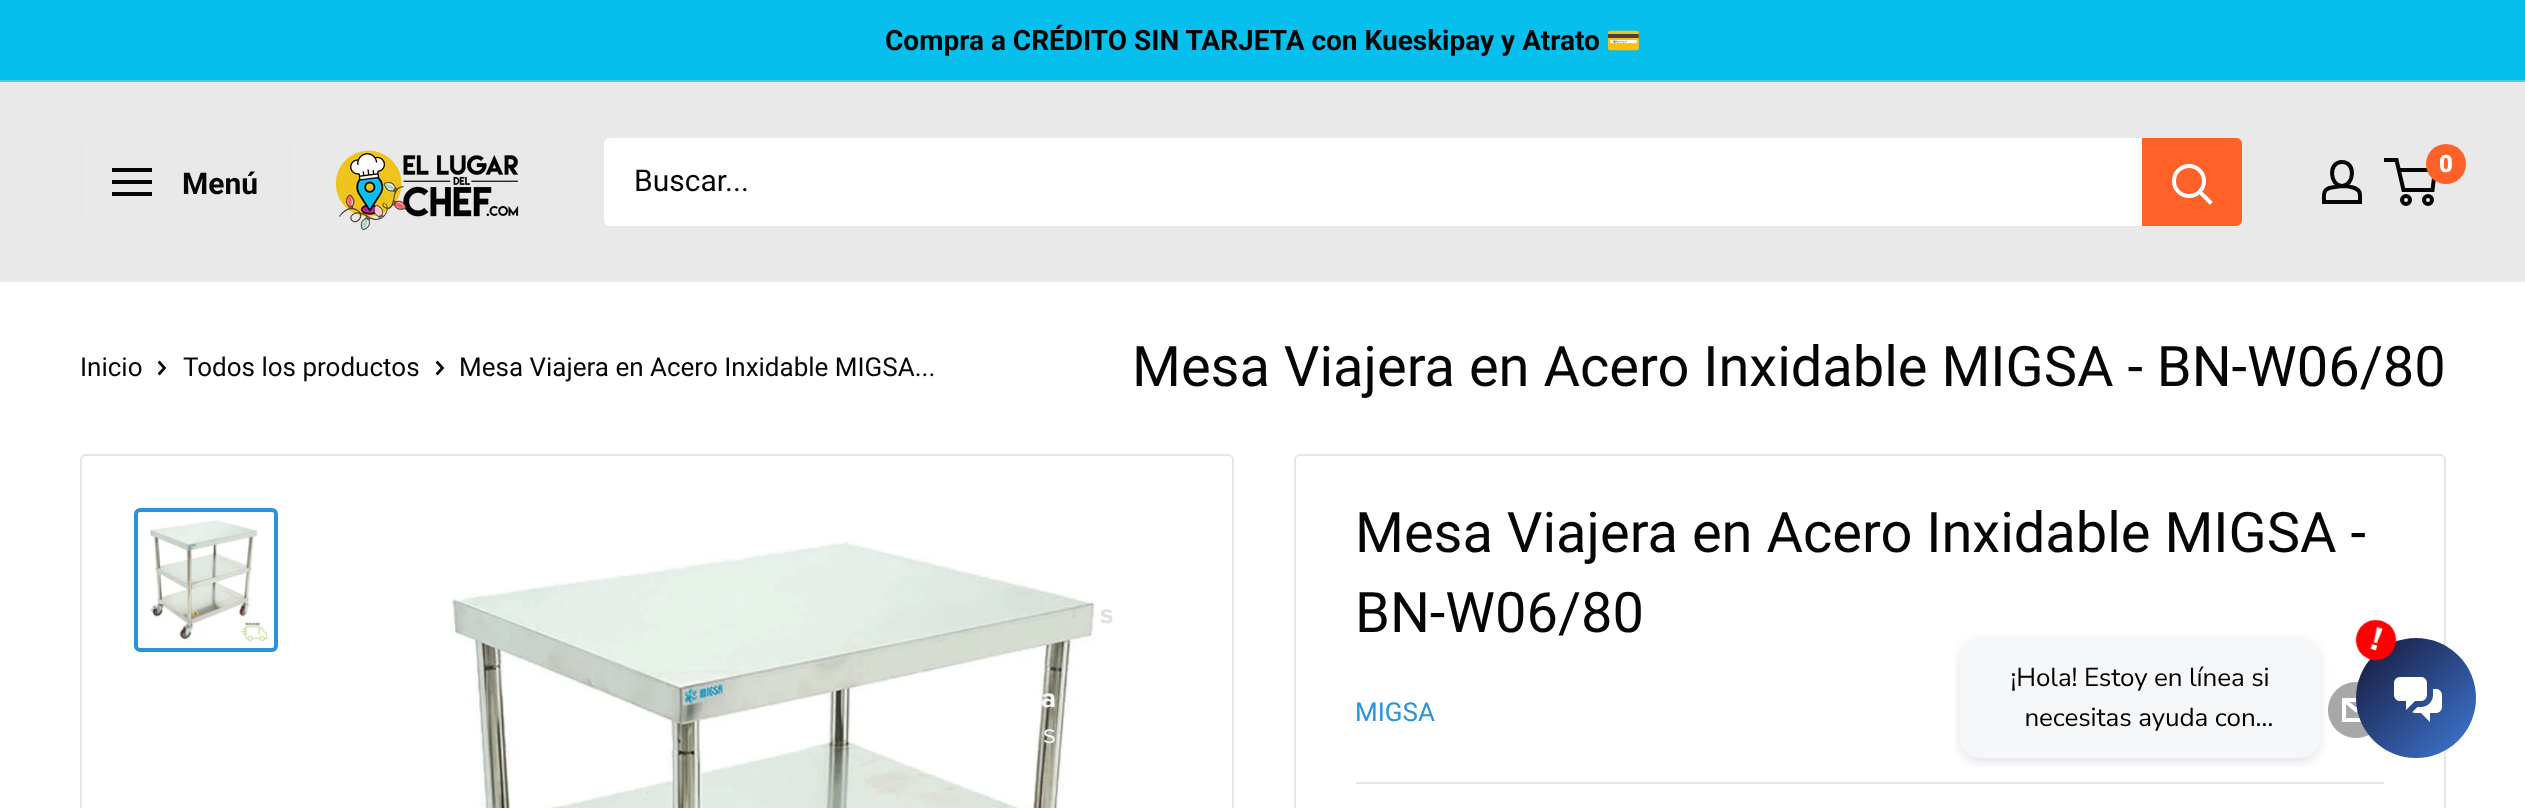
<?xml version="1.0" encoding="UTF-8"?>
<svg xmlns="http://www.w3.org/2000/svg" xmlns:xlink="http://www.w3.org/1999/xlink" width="2525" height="808">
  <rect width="100%" height="100%" fill="#ffffff" />
  <rect width="2525" height="80" fill="#07bfed" />
  <rect y="80" width="2525" height="2" fill="#4bcae8" />
  <rect y="82" width="2525" height="200" fill="#e9e9e9" />
  <rect x="81" y="139" width="208" height="86" rx="5" fill="none" stroke="#e9e7e5" stroke-width="2" />
  <path d="M 112 192 h 40 v 4 h -40 z m 0 -24 h 40 v 4 h -40 z m 0 12 h 40 v 4 h -40 z" fill="#060606" fill-rule="evenodd" />
  <image x="335" y="150" width="184" height="81" xlink:href="image1.png" />
  <rect x="604" y="138" width="1638" height="88" rx="6" fill="#ffffff" />
  <path d="M 2142 138 h 94 c 3.5 0 6 2.5 6 6 v 76 c 0 3.5 -2.5 6 -6 6 h -94 z" fill="#ff6128" />
  <path d="M 2210 202 l -10 -10" fill="none" stroke="#ffffff" stroke-width="4" stroke-linecap="square" />
  <circle cx="2189" cy="181" r="15" fill="none" stroke="#ffffff" stroke-width="4" />
  <path d="M 2342 186 c 4 0 7.5 0.5 11 1.5 c 8.5 2.5 7 7 7 14.5 h -36 c 0 -8 -1.5 -12.5 7.5 -14.5 z m 0 0 c -12 0 -14.5 -24 0 -24 c 14.5 0 12 24 0 24 z" fill="none" stroke="#060606" stroke-width="4" />
  <circle cx="2406" cy="200" r="4" fill="none" stroke="#060606" stroke-width="4" />
  <circle cx="2428" cy="200" r="4" fill="none" stroke="#060606" stroke-width="4" />
  <path d="M 2398.5 170 h 36.5 l -2.5 20 h -29 l -7 -30 h -12.5" fill="none" stroke="#060606" stroke-width="4" />
  <circle cx="2446" cy="164" r="20" fill="#ff6128" />
  <path d="M 159.5 362.5 l 5 5.5 l -5 5.5" fill="none" stroke="#060606" stroke-width="2.7" stroke-linecap="square" />
  <path d="M 437.5 362.5 l 5 5.5 l -5 5.5" fill="none" stroke="#060606" stroke-width="2.7" stroke-linecap="square" />
  <rect x="81" y="455" width="1152" height="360" rx="5" fill="none" stroke="#ebe4e4" stroke-width="2" />
  <rect x="136" y="510" width="140" height="140" rx="4" fill="none" stroke="#2994dc" stroke-width="4" />
  <image x="150" y="520" width="119" height="124" xlink:href="image2.png" />
  <image x="450" y="541" width="645" height="267" xlink:href="image3.png" />
  <rect x="1295" y="455" width="1150" height="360" rx="5" fill="none" stroke="#ebe4e4" stroke-width="2" />
  <image x="2328" y="682" width="41" height="56" xlink:href="image4.png" />
  <rect x="1356" y="782" width="1028" height="2" fill="#ebe4e4" />
  <image x="1955" y="619" width="521" height="148" xlink:href="image5.png" />
  <text x="885" y="50" style="font-family: Roboto; font-size: 28px; font-weight: bold; fill: #060606">Compra a CRÉDITO SIN TARJETA con Kueskipay y Atrato</text>
  <text x="1606" y="50" style="font-family: Noto Color Emoji; font-size: 28px; font-weight: bold; fill: #060606">💳</text>
  <text x="182" y="194" style="font-family: Roboto; font-size: 30px; font-weight: bold; fill: #060606">Menú</text>
  <text x="634" y="191" style="font-family: Roboto; font-size: 30px; fill: #060606">Buscar...</text>
  <text x="2439" y="172" style="font-family: Roboto; font-size: 24px; font-weight: 900; fill: #ffffff">0</text>
  <text x="80" y="376" style="font-family: Roboto; font-size: 26px; fill: #060606">Inicio</text>
  <text x="183" y="376" style="font-family: Roboto; font-size: 26px; fill: #060606">Todos los productos</text>
  <text x="459" y="376" style="font-family: Roboto; font-size: 26px; fill: #060606">Mesa Viajera en Acero Inxidable MIGSA...</text>
  <text x="1132" y="386" style="font-family: Roboto; font-size: 56px; fill: #060606">Mesa Viajera en Acero Inxidable MIGSA - BN-W06/80</text>
  <text x="1355" y="552" style="font-family: Roboto; font-size: 56px; fill: #060606">Mesa Viajera en Acero Inxidable MIGSA -</text>
  <text x="1355" y="632" style="font-family: Roboto; font-size: 56px; fill: #060606">BN-W06/80</text>
  <text x="1355" y="721" style="font-family: Roboto; font-size: 26px; fill: #2994dc">MIGSA</text>
  <text x="1100" y="623" style="font-family: Proxima Nova; font-size: 28px; font-weight: bold; fill: #dce2db">s</text>
  <text x="1041" y="707" style="font-family: Proxima Nova; font-size: 28px; font-weight: bold; fill: #f6f6f4">a</text>
  <text x="1043" y="743" style="font-family: Proxima Nova; font-size: 28px; fill: #f6f6f4">s</text>
</svg>
